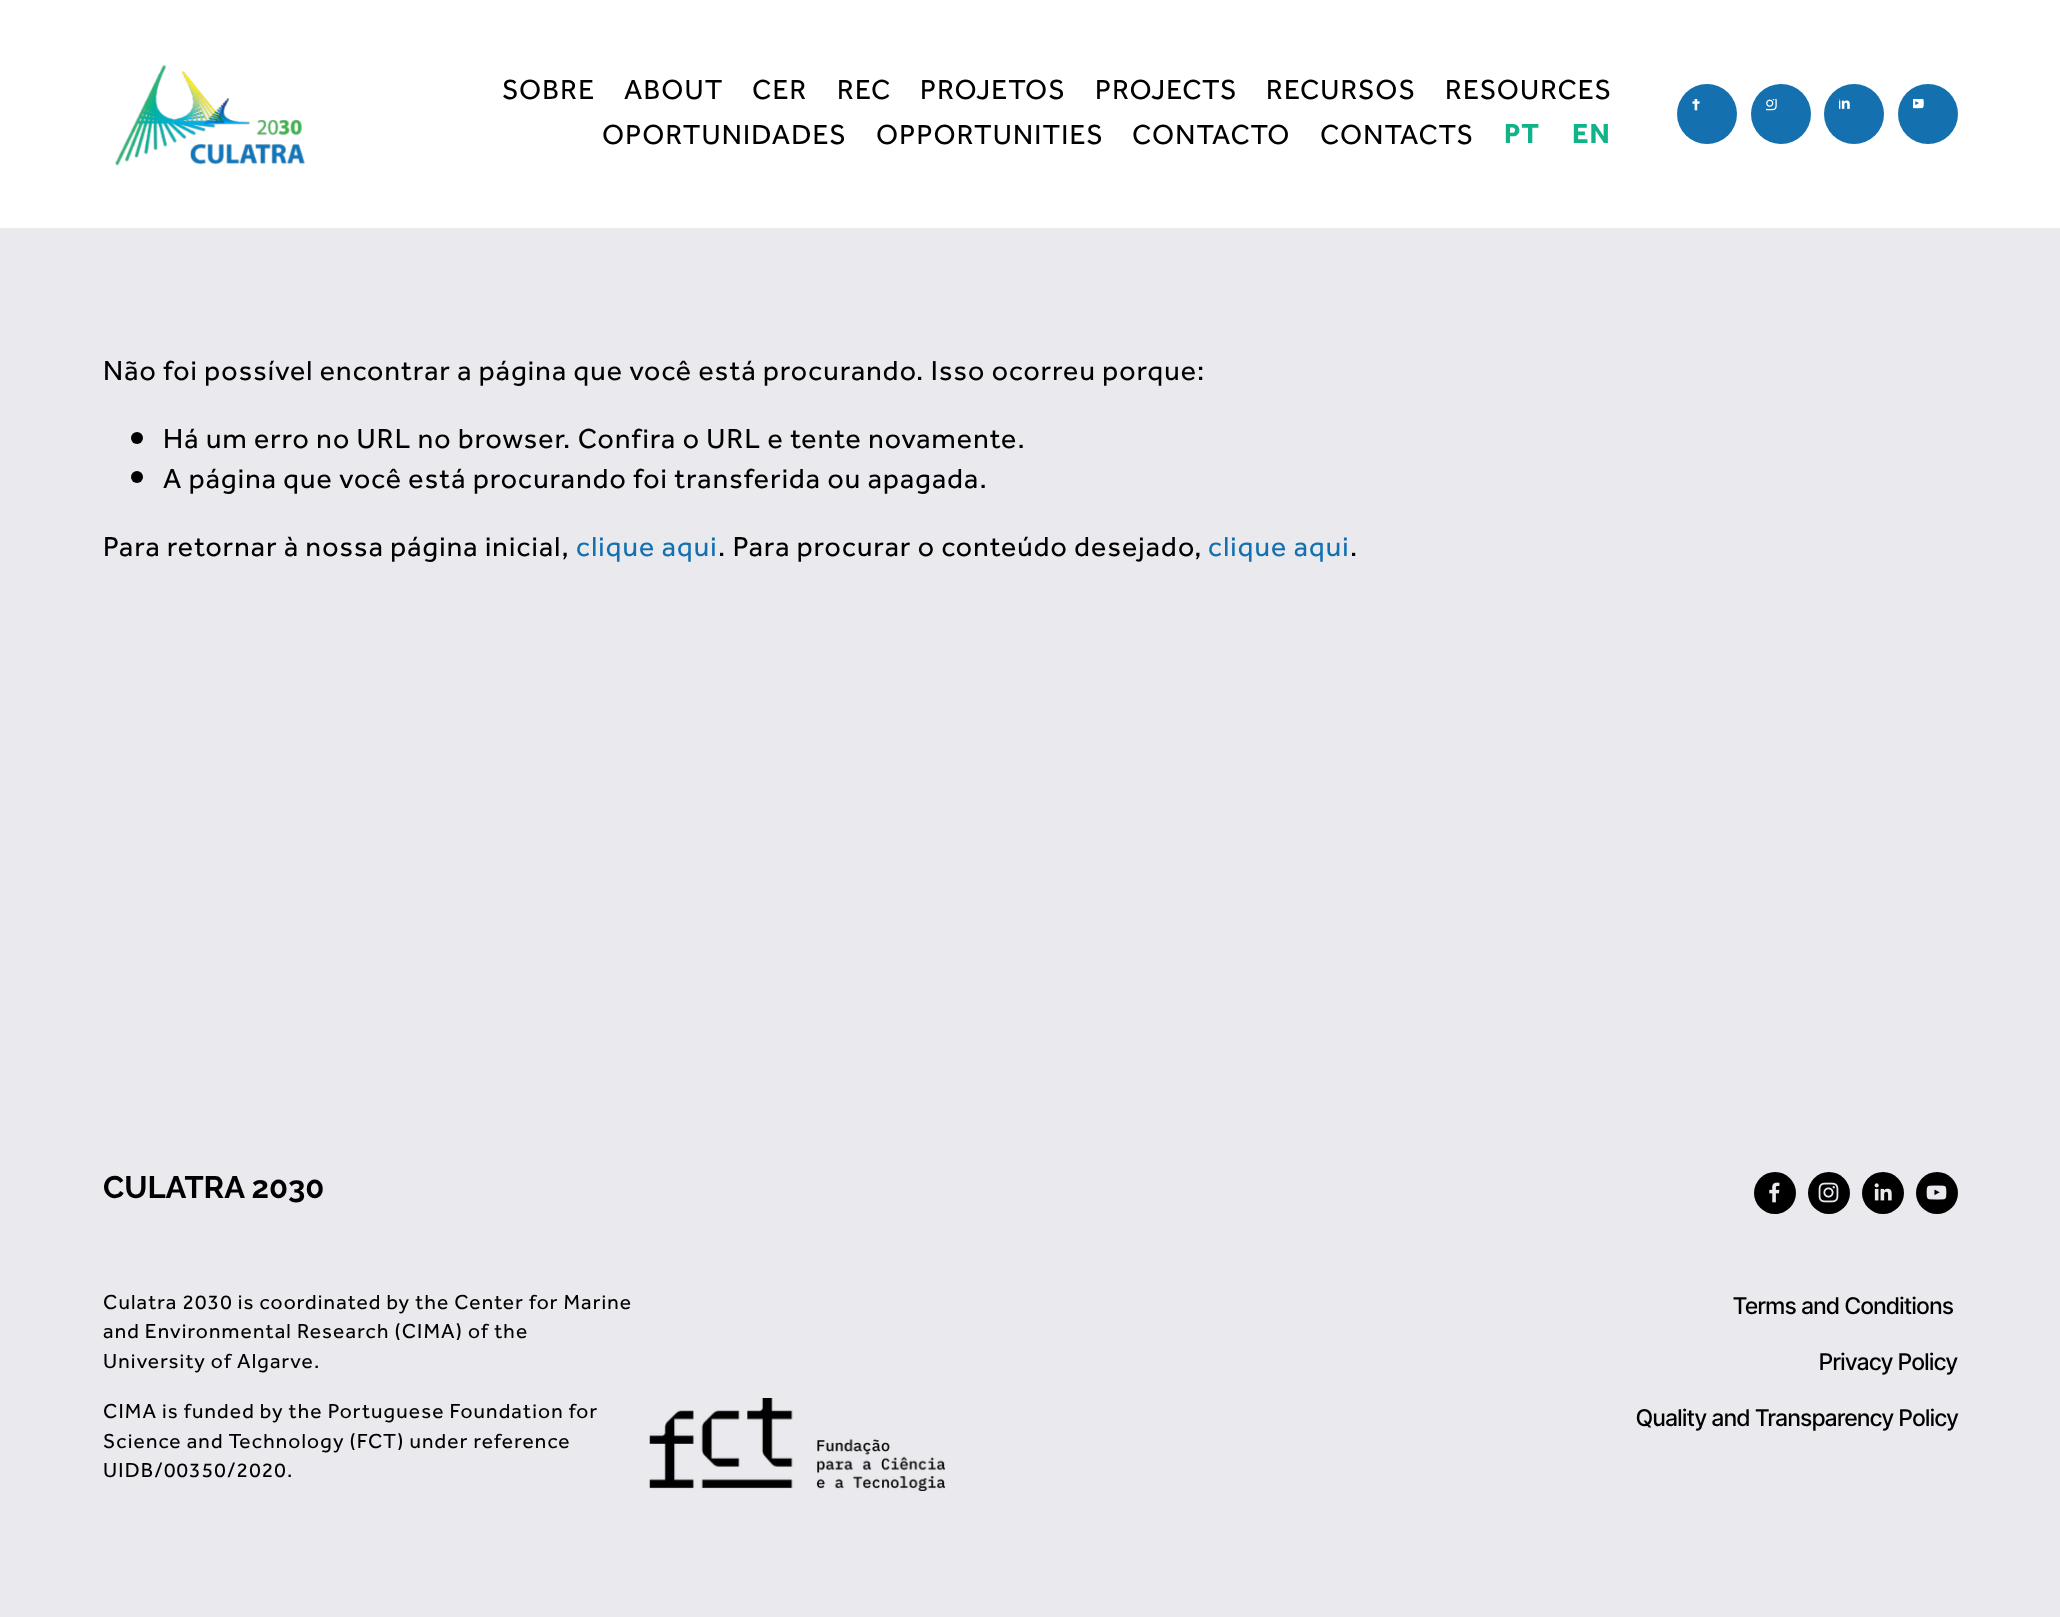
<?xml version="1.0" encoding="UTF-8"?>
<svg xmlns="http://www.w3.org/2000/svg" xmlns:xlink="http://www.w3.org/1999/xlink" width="2060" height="1617">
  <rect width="100%" height="100%" fill="#eaeaee" />
  <rect width="2060" height="228" fill="#ffffff" />
  <image x="115" y="64" width="190" height="102" xlink:href="image1.png" />
  <circle cx="1707" cy="114" r="30" fill="#1470af" />
  <image x="1692" y="99" width="8" height="12" xlink:href="image2.png" />
  <circle cx="1781" cy="114" r="30" fill="#1470af" />
  <image x="1766" y="99" width="11" height="12" xlink:href="image3.png" />
  <circle cx="1854" cy="114" r="30" fill="#1470af" />
  <image x="1839" y="99" width="11" height="10" xlink:href="image4.png" />
  <circle cx="1928" cy="114" r="30" fill="#1470af" />
  <image x="1913" y="99" width="11" height="10" xlink:href="image5.png" />
  <circle cx="137" cy="438" r="6" fill="#000000" />
  <circle cx="137" cy="477" r="6" fill="#000000" />
  <circle cx="1775" cy="1193" r="21" fill="#000000" />
  <image x="1769" y="1182" width="11" height="21" xlink:href="image6.png" />
  <circle cx="1829" cy="1193" r="21" fill="#000000" />
  <image x="1818" y="1182" width="21" height="21" xlink:href="image7.png" />
  <circle cx="1883" cy="1193" r="21" fill="#000000" />
  <image x="1874" y="1183" width="18" height="18" xlink:href="image8.png" />
  <circle cx="1937" cy="1193" r="21" fill="#000000" />
  <image x="1926" y="1185" width="21" height="15" xlink:href="image9.png" />
  <image x="649" y="1398" width="296" height="93" xlink:href="image10.png" />
  <text x="502" y="99" style="font-family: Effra; font-size: 28.4px; letter-spacing: 1.15px; fill: #000000">SOBRE</text>
  <text x="624" y="99" style="font-family: Effra; font-size: 28.4px; letter-spacing: 1.15px; fill: #000000">ABOUT</text>
  <text x="752" y="99" style="font-family: Effra; font-size: 28.4px; letter-spacing: 1.15px; fill: #000000">CER</text>
  <text x="837" y="99" style="font-family: Effra; font-size: 28.4px; letter-spacing: 1.15px; fill: #000000">REC</text>
  <text x="920" y="99" style="font-family: Effra; font-size: 28.4px; letter-spacing: 1.15px; fill: #000000">PROJETOS</text>
  <text x="1095" y="99" style="font-family: Effra; font-size: 28.4px; letter-spacing: 1.15px; fill: #000000">PROJECTS</text>
  <text x="1266" y="99" style="font-family: Effra; font-size: 28.4px; letter-spacing: 1.15px; fill: #000000">RECURSOS</text>
  <text x="1445" y="99" style="font-family: Effra; font-size: 28.4px; letter-spacing: 1.15px; fill: #000000">RESOURCES</text>
  <text x="602" y="144" style="font-family: Effra; font-size: 28.4px; letter-spacing: 1.15px; fill: #000000">OPORTUNIDADES</text>
  <text x="876" y="144" style="font-family: Effra; font-size: 28.4px; letter-spacing: 1.15px; fill: #000000">OPPORTUNITIES</text>
  <text x="1132" y="144" style="font-family: Effra; font-size: 28.4px; letter-spacing: 1.15px; fill: #000000">CONTACTO</text>
  <text x="1320" y="144" style="font-family: Effra; font-size: 28.4px; letter-spacing: 1.15px; fill: #000000">CONTACTS</text>
  <text x="1504" y="143" style="font-family: Effra; font-size: 28.4px; font-weight: bold; letter-spacing: 1.15px; fill: #11b389">PT</text>
  <text x="1572" y="143" style="font-family: Effra; font-size: 28.4px; font-weight: bold; letter-spacing: 1.15px; fill: #11b389">EN</text>
  <text x="103" y="380" style="font-family: Effra; font-size: 28.4px; letter-spacing: 1.15px; fill: #000000">Não foi possível encontrar a página que você está procurando. Isso ocorreu porque:</text>
  <text x="163" y="448" style="font-family: Effra; font-size: 28.4px; letter-spacing: 1.15px; fill: #000000">Há um erro no URL no browser. Confira o URL e tente novamente.</text>
  <text x="163" y="488" style="font-family: Effra; font-size: 28.4px; letter-spacing: 1.15px; fill: #000000">A página que você está procurando foi transferida ou apagada.</text>
  <text x="103" y="556" style="font-family: Effra; font-size: 28.4px; letter-spacing: 1.15px; fill: #000000">Para retornar à nossa página inicial,</text>
  <text x="576" y="556" style="font-family: Effra; font-size: 28.4px; letter-spacing: 1.15px; fill: #1470af">clique aqui</text>
  <text x="718" y="556" style="font-family: Effra; font-size: 28.4px; letter-spacing: 1.15px; fill: #000000">. Para procurar o conteúdo desejado,</text>
  <text x="1208" y="556" style="font-family: Effra; font-size: 28.4px; letter-spacing: 1.15px; fill: #1470af">clique aqui</text>
  <text x="1350" y="556" style="font-family: Effra; font-size: 28.4px; letter-spacing: 1.15px; fill: #000000">.</text>
  <text x="103" y="1198" style="font-family: Raleway; font-size: 31px; font-weight: bold; fill: #000000">CULATRA 2030</text>
  <text x="103" y="1309" style="font-family: Effra; font-size: 21px; letter-spacing: 1.15px; fill: #000000">Culatra 2030 is coordinated by the Center for Marine</text>
  <text x="103" y="1338" style="font-family: Effra; font-size: 21px; letter-spacing: 1.15px; fill: #000000">and Environmental Research (CIMA) of the</text>
  <text x="103" y="1368" style="font-family: Effra; font-size: 21px; letter-spacing: 1.15px; fill: #000000">University of Algarve.</text>
  <text x="103" y="1418" style="font-family: Effra; font-size: 21px; letter-spacing: 1.15px; fill: #000000">CIMA is funded by the Portuguese Foundation for</text>
  <text x="103" y="1448" style="font-family: Effra; font-size: 21px; letter-spacing: 1.15px; fill: #000000">Science and Technology (FCT) under reference</text>
  <text x="103" y="1477" style="font-family: Effra; font-size: 21px; letter-spacing: 1.15px; fill: #000000">UIDB/00350/2020.</text>
  <text x="1733" y="1314" style="font-family: Inter Tight; font-size: 23px; font-weight: 500; fill: #000000">Terms and Conditions</text>
  <text x="1819" y="1370" style="font-family: Inter Tight; font-size: 23px; font-weight: 500; fill: #000000">Privacy Policy</text>
  <text x="1636" y="1426" style="font-family: Inter Tight; font-size: 23px; font-weight: 500; fill: #000000">Quality and Transparency Policy</text>
</svg>
